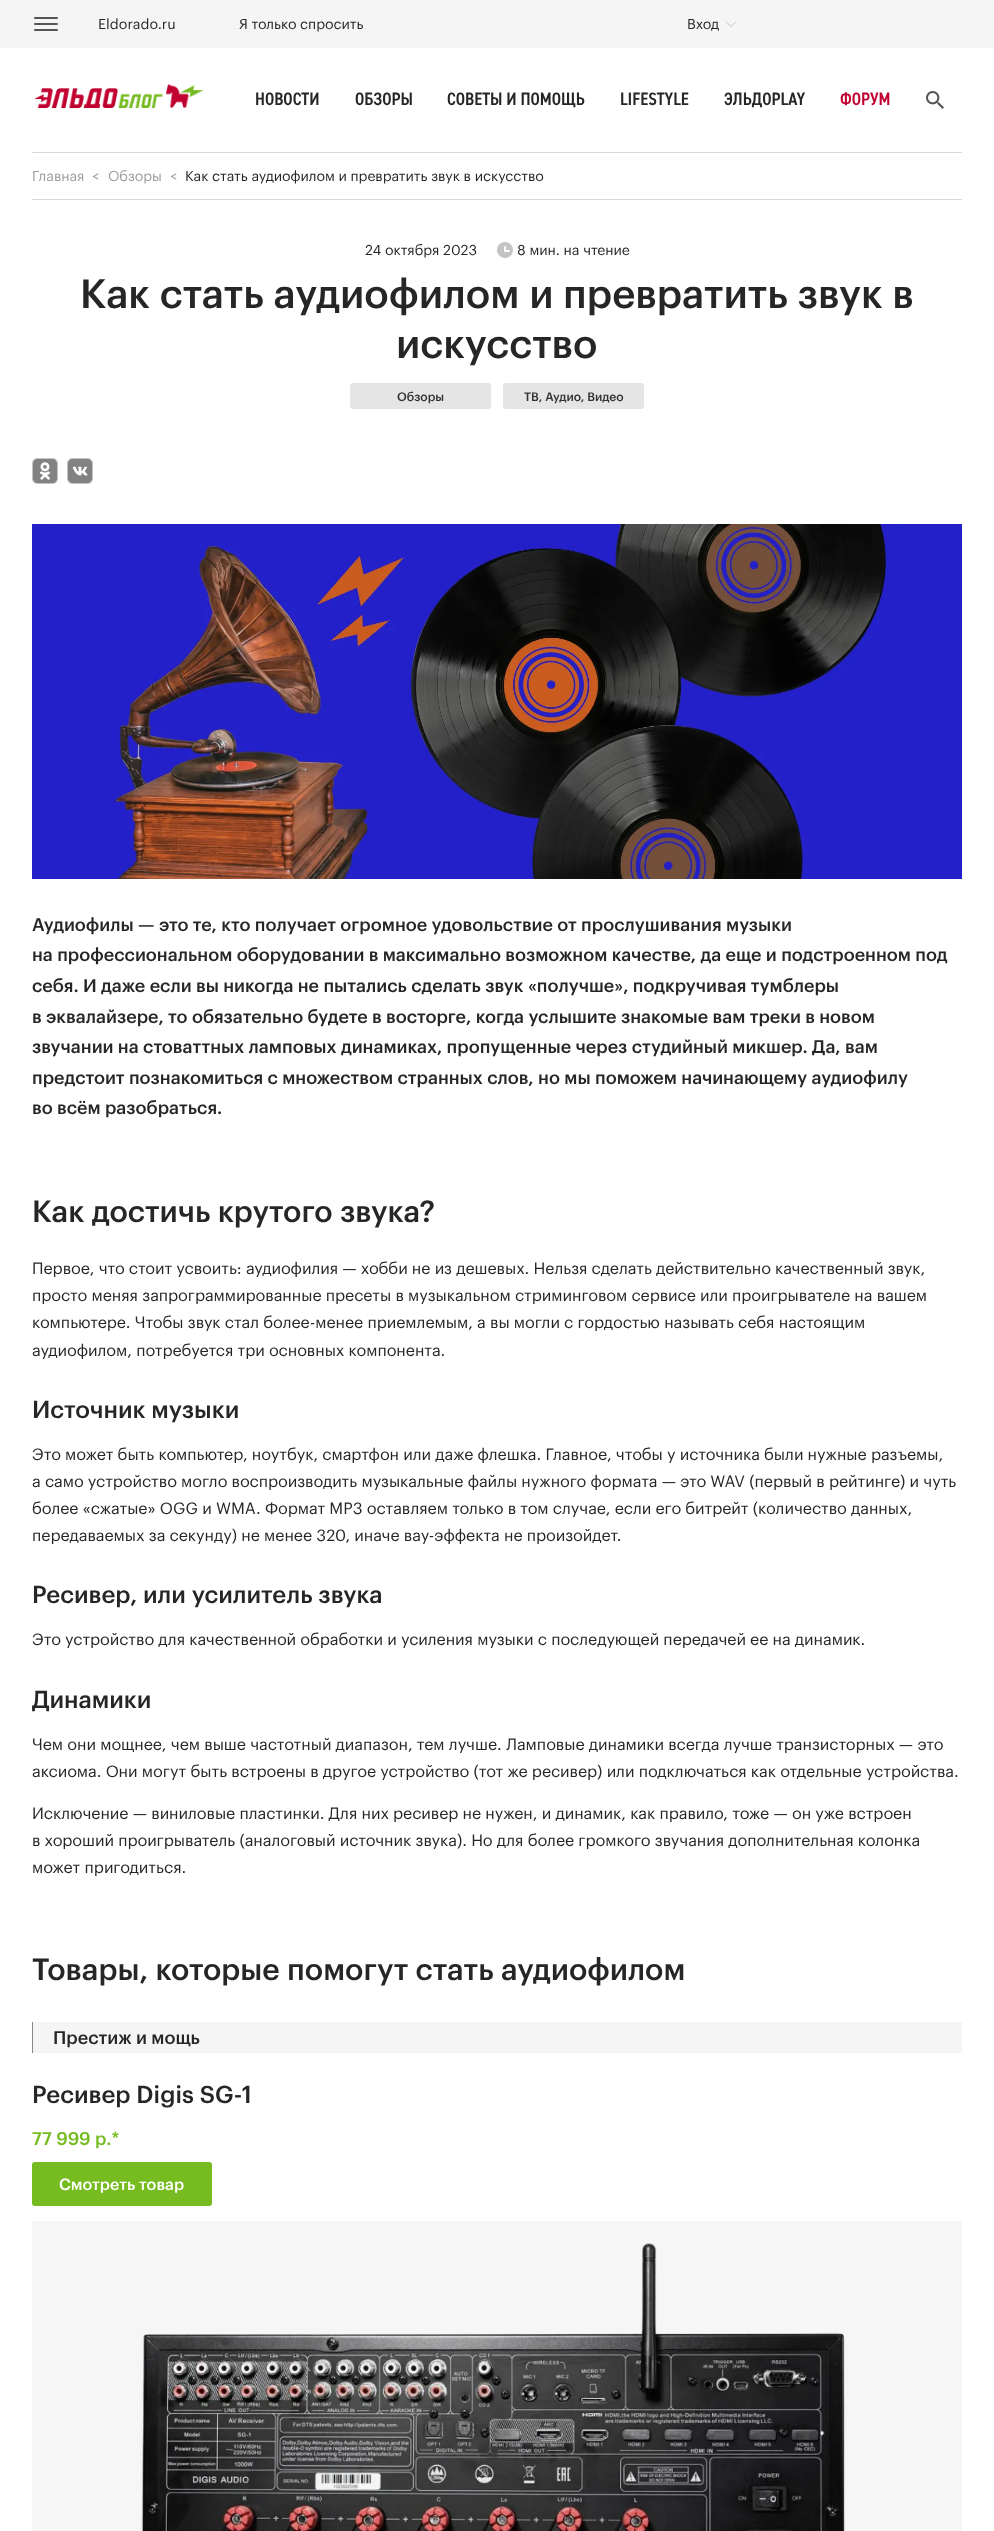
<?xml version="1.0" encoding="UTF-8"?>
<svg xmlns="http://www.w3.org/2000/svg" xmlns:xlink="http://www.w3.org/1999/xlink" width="994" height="2531">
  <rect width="100%" height="100%" fill="#ffffff" />
  <rect width="994" height="48" fill="#f5f5f5" />
  <rect x="34" y="17" width="24" height="2" rx="1" fill="#555555" />
  <rect x="34" y="23" width="24" height="2" rx="1" fill="#555555" />
  <rect x="34" y="29" width="24" height="2" rx="1" fill="#555555" />
  <path d="M 736 21.5 l -5 5 l -5 -5" fill="none" stroke="#c4c4c4" />
  <image x="34" y="84" width="170" height="25" xlink:href="image1.png" />
  <image x="926" y="91" width="18" height="18" xlink:href="image2.png" />
  <rect x="32" y="152" width="930" height="1" fill="#d9d9d9" />
  <rect x="32" y="199" width="930" height="1" fill="#d9d9d9" />
  <image x="497" y="242" width="16" height="16" xlink:href="image3.png" />
  <rect x="350" y="383" width="141" height="26" rx="3" fill="#e5e5e5" />
  <rect x="503" y="383" width="141" height="26" rx="3" fill="#e5e5e5" />
  <rect x="32.5" y="458.5" width="25" height="25" rx="4.5" fill="none" stroke="#c4c4c4" />
  <image x="33" y="459" width="24" height="24" xlink:href="image4.png" />
  <rect x="67.5" y="458.5" width="25" height="25" rx="4.5" fill="none" stroke="#c4c4c4" />
  <image x="68" y="459" width="24" height="24" xlink:href="image5.png" />
  <image x="32" y="524" width="930" height="355" xlink:href="image6.png" />
  <rect x="33" y="2022" width="929" height="31" fill="#f5f5f5" />
  <rect x="32" y="2022" width="1" height="31" fill="#888888" />
  <rect x="32" y="2162" width="180" height="44" rx="3" fill="#76bc21" />
  <image x="32" y="2221" width="930" height="310" xlink:href="image7.png" />
  <text x="98" y="29" style="font-family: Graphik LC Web; font-size: 14px; fill: #262626">Eldorado.ru</text>
  <text x="239" y="29" style="font-family: Graphik LC Web; font-size: 14px; fill: #262626">Я только спросить</text>
  <text x="687" y="29" style="font-family: Graphik LC Web; font-size: 14px; fill: #262626">Вход</text>
  <text x="255" y="105" style="font-family: 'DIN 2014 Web'; font-size: 18px; font-weight: 600; fill: #262626">НОВОСТИ</text>
  <text x="355" y="105" style="font-family: 'DIN 2014 Web'; font-size: 18px; font-weight: 600; fill: #262626">ОБЗОРЫ</text>
  <text x="447" y="105" style="font-family: 'DIN 2014 Web'; font-size: 18px; font-weight: 600; fill: #262626">СОВЕТЫ И ПОМОЩЬ</text>
  <text x="620" y="105" style="font-family: 'DIN 2014 Web'; font-size: 18px; font-weight: 600; fill: #262626">LIFESTYLE</text>
  <text x="724" y="105" style="font-family: 'DIN 2014 Web'; font-size: 18px; font-weight: 600; fill: #262626">ЭЛЬДОPLAY</text>
  <text x="840" y="105" style="font-family: 'DIN 2014 Web'; font-size: 18px; font-weight: 600; fill: #c10230">ФОРУМ</text>
  <text x="32" y="181" style="font-family: Graphik LC Web; font-size: 14px; fill: #9d9d9d">Главная</text>
  <text x="92" y="181" style="font-family: Graphik LC Web; font-size: 14px; fill: #9d9d9d">&lt;</text>
  <text x="108" y="181" style="font-family: Graphik LC Web; font-size: 14px; fill: #9d9d9d">Обзоры</text>
  <text x="170" y="181" style="font-family: Graphik LC Web; font-size: 14px; fill: #9d9d9d">&lt;</text>
  <text x="185" y="181" style="font-family: Graphik LC Web; font-size: 14px; fill: #262626">Как стать аудиофилом и превратить звук в искусство</text>
  <text x="365" y="255" style="font-family: Graphik LC Web; font-size: 14px; fill: #262626">24 октября 2023</text>
  <text x="517" y="255" style="font-family: Graphik LC Web; font-size: 14px; fill: #262626">8 мин. на чтение</text>
  <text x="80" y="308" style="font-family: Graphik LC Web; font-size: 40px; font-weight: 500; fill: #262626">Как стать аудиофилом и превратить звук в</text>
  <text x="396" y="358" style="font-family: Graphik LC Web; font-size: 40px; font-weight: 500; fill: #262626">искусство</text>
  <text x="397" y="401" style="font-family: Graphik LC Web; font-size: 12px; font-weight: 500; fill: #333333">Обзоры</text>
  <text x="524" y="401" style="font-family: Graphik LC Web; font-size: 12px; font-weight: 500; fill: #333333">ТВ, Аудио, Видео</text>
  <text x="32" y="931" style="font-family: Graphik LC Web; font-size: 18px; font-weight: 500; fill: #262626">Аудиофилы — это те, кто получает огромное удовольствие от прослушивания музыки</text>
  <text x="32" y="961" style="font-family: Graphik LC Web; font-size: 18px; font-weight: 500; fill: #262626">на профессиональном оборудовании в максимально возможном качестве, да еще и подстроенном под</text>
  <text x="32" y="992" style="font-family: Graphik LC Web; font-size: 18px; font-weight: 500; fill: #262626">себя. И даже если вы никогда не пытались сделать звук «получше», подкручивая тумблеры</text>
  <text x="32" y="1023" style="font-family: Graphik LC Web; font-size: 18px; font-weight: 500; fill: #262626">в эквалайзере, то обязательно будете в восторге, когда услышите знакомые вам треки в новом</text>
  <text x="32" y="1053" style="font-family: Graphik LC Web; font-size: 18px; font-weight: 500; fill: #262626">звучании на стоваттных ламповых динамиках, пропущенные через студийный микшер. Да, вам</text>
  <text x="32" y="1084" style="font-family: Graphik LC Web; font-size: 18px; font-weight: 500; fill: #262626">предстоит познакомиться с множеством странных слов, но мы поможем начинающему аудиофилу</text>
  <text x="32" y="1114" style="font-family: Graphik LC Web; font-size: 18px; font-weight: 500; fill: #262626">во всём разобраться.</text>
  <text x="32" y="1222" style="font-family: Graphik LC Web; font-size: 30px; font-weight: 500; fill: #262626">Как достичь крутого звука?</text>
  <text x="32" y="1274" style="font-family: Graphik LC Web; font-size: 16px; fill: #262626">Первое, что стоит усвоить: аудиофилия — хобби не из дешевых. Нельзя сделать действительно качественный звук,</text>
  <text x="32" y="1301" style="font-family: Graphik LC Web; font-size: 16px; fill: #262626">просто меняя запрограммированные пресеты в музыкальном стриминговом сервисе или проигрывателе на вашем</text>
  <text x="32" y="1328" style="font-family: Graphik LC Web; font-size: 16px; fill: #262626">компьютере. Чтобы звук стал более-менее приемлемым, а вы могли с гордостью называть себя настоящим</text>
  <text x="32" y="1356" style="font-family: Graphik LC Web; font-size: 16px; fill: #262626">аудиофилом, потребуется три основных компонента.</text>
  <text x="32" y="1418" style="font-family: Graphik LC Web; font-size: 24px; font-weight: 500; fill: #262626">Источник музыки</text>
  <text x="32" y="1460" style="font-family: Graphik LC Web; font-size: 16px; fill: #262626">Это может быть компьютер, ноутбук, смартфон или даже флешка. Главное, чтобы у источника были нужные разъемы,</text>
  <text x="32" y="1487" style="font-family: Graphik LC Web; font-size: 16px; fill: #262626">а само устройство могло воспроизводить музыкальные файлы нужного формата — это WAV (первый в рейтинге) и чуть</text>
  <text x="32" y="1514" style="font-family: Graphik LC Web; font-size: 16px; fill: #262626">более «сжатые» OGG и WMA. Формат MP3 оставляем только в том случае, если его битрейт (количество данных,</text>
  <text x="32" y="1541" style="font-family: Graphik LC Web; font-size: 16px; fill: #262626">передаваемых за секунду) не менее 320, иначе вау-эффекта не произойдет.</text>
  <text x="32" y="1603" style="font-family: Graphik LC Web; font-size: 24px; font-weight: 500; fill: #262626">Ресивер, или усилитель звука</text>
  <text x="32" y="1645" style="font-family: Graphik LC Web; font-size: 16px; fill: #262626">Это устройство для качественной обработки и усиления музыки с последующей передачей ее на динамик.</text>
  <text x="32" y="1708" style="font-family: Graphik LC Web; font-size: 24px; font-weight: 500; fill: #262626">Динамики</text>
  <text x="32" y="1750" style="font-family: Graphik LC Web; font-size: 16px; fill: #262626">Чем они мощнее, чем выше частотный диапазон, тем лучше. Ламповые динамики всегда лучше транзисторных — это</text>
  <text x="32" y="1777" style="font-family: Graphik LC Web; font-size: 16px; fill: #262626">аксиома. Они могут быть встроены в другое устройство (тот же ресивер) или подключаться как отдельные устройства.</text>
  <text x="32" y="1819" style="font-family: Graphik LC Web; font-size: 16px; fill: #262626">Исключение — виниловые пластинки. Для них ресивер не нужен, и динамик, как правило, тоже — он уже встроен</text>
  <text x="32" y="1846" style="font-family: Graphik LC Web; font-size: 16px; fill: #262626">в хороший проигрыватель (аналоговый источник звука). Но для более громкого звучания дополнительная колонка</text>
  <text x="32" y="1873" style="font-family: Graphik LC Web; font-size: 16px; fill: #262626">может пригодиться.</text>
  <text x="32" y="1980" style="font-family: Graphik LC Web; font-size: 30px; font-weight: 500; fill: #262626">Товары, которые помогут стать аудиофилом</text>
  <text x="53" y="2044" style="font-family: Graphik LC Web; font-size: 18px; font-weight: 500; fill: #262626">Престиж и мощь</text>
  <text x="32" y="2103" style="font-family: Graphik LC Web; font-size: 24px; font-weight: 500; fill: #262626">Ресивер Digis SG-1</text>
  <text x="32" y="2145" style="font-family: Graphik LC Web; font-size: 18px; font-weight: 500; fill: #76bc21">77 999 р.*</text>
  <text x="59" y="2190" style="font-family: Graphik LC Web; font-size: 16px; font-weight: 500; fill: #ffffff">Смотреть товар</text>
</svg>
